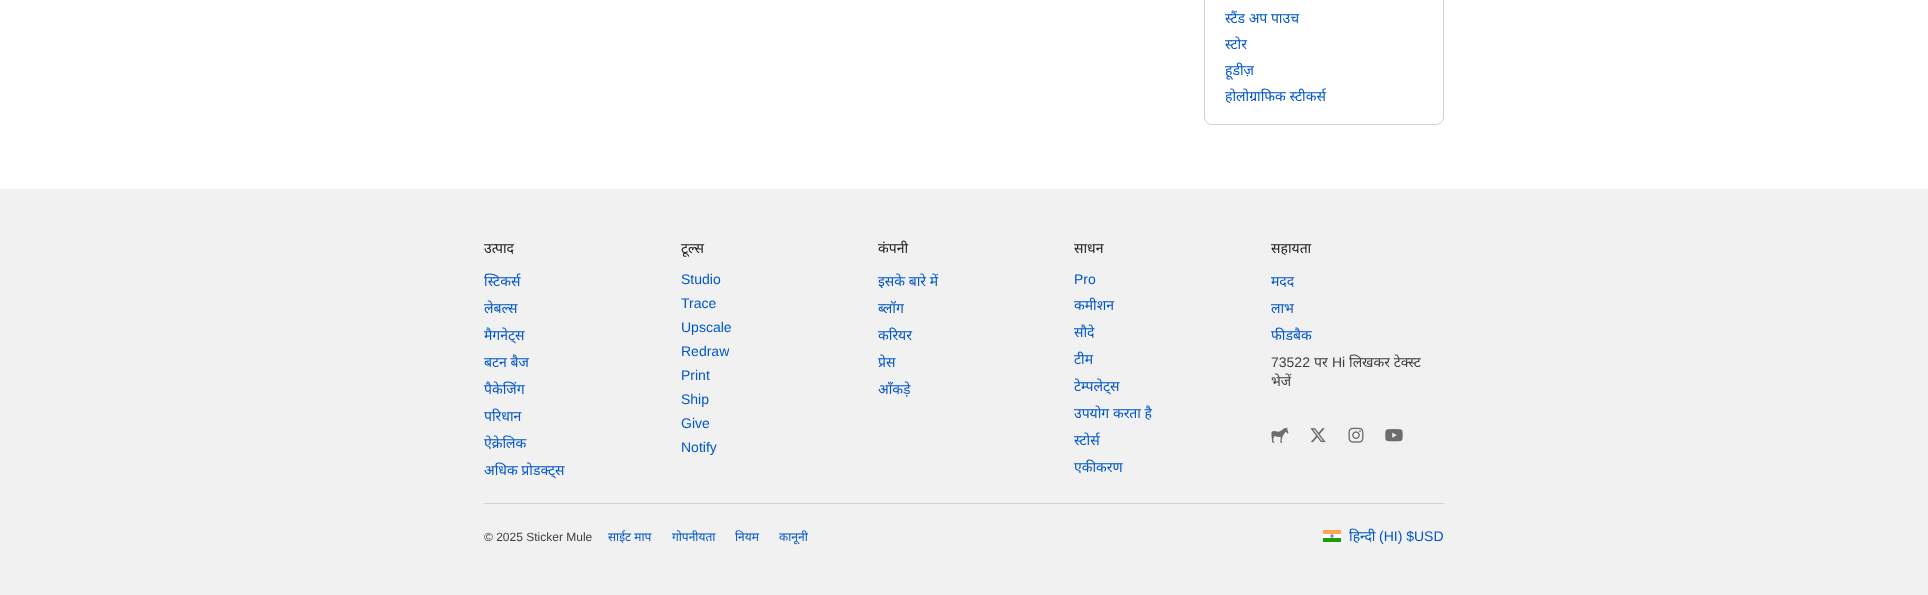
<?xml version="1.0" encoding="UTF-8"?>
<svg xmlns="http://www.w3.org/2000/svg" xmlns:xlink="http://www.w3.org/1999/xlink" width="1928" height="595">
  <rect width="100%" height="100%" fill="#ffffff" />
  <rect x="1204.5" y="-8.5" width="239" height="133" rx="7.5" fill="none" stroke="#d2d2d2" />
  <rect y="189" width="1928" height="406" fill="#f1f1f1" />
  <image x="1271" y="427" width="18" height="16" xlink:href="image1.png" />
  <image x="1310" y="428" width="16" height="15" xlink:href="image2.png" />
  <image x="1348" y="427" width="16" height="16" xlink:href="image3.png" />
  <image x="1385" y="429" width="18" height="13" xlink:href="image4.png" />
  <rect x="484" y="503" width="960" height="1" fill="#d2d2d2" />
  <image x="1323" y="530" width="18" height="12" xlink:href="image5.png" />
  <text x="1225" y="23" style="font-family: Noto Sans; font-size: 14px; fill: #0056c7">स्टैंड अप पाउच</text>
  <text x="1225" y="49" style="font-family: Noto Sans; font-size: 14px; fill: #0056c7">स्टोर</text>
  <text x="1225" y="75" style="font-family: Noto Sans; font-size: 14px; fill: #0056c7">हूडीज़</text>
  <text x="1225" y="101" style="font-family: Noto Sans; font-size: 14px; fill: #0056c7">होलोग्राफिक स्टीकर्स</text>
  <text x="484" y="253" style="font-family: Noto Sans; font-size: 14px; fill: #202020">उत्पाद</text>
  <text x="484" y="286" style="font-family: Noto Sans; font-size: 14px; fill: #0056c7">स्टिकर्स</text>
  <text x="484" y="313" style="font-family: Noto Sans; font-size: 14px; fill: #0056c7">लेबल्स</text>
  <text x="484" y="340" style="font-family: Noto Sans; font-size: 14px; fill: #0056c7">मैगनेट्स</text>
  <text x="484" y="367" style="font-family: Noto Sans; font-size: 14px; fill: #0056c7">बटन बैज</text>
  <text x="484" y="394" style="font-family: Noto Sans; font-size: 14px; fill: #0056c7">पैकेजिंग</text>
  <text x="484" y="421" style="font-family: Noto Sans; font-size: 14px; fill: #0056c7">परिधान</text>
  <text x="484" y="448" style="font-family: Noto Sans; font-size: 14px; fill: #0056c7">ऐक्रेलिक</text>
  <text x="484" y="475" style="font-family: Noto Sans; font-size: 14px; fill: #0056c7">अधिक प्रोडक्ट्स</text>
  <text x="681" y="253" style="font-family: Noto Sans; font-size: 14px; fill: #202020">टूल्स</text>
  <text x="681" y="284" style="font-family: Liberation Sans; font-size: 14px; fill: #0056c7">Studio</text>
  <text x="681" y="308" style="font-family: Liberation Sans; font-size: 14px; fill: #0056c7">Trace</text>
  <text x="681" y="332" style="font-family: Liberation Sans; font-size: 14px; fill: #0056c7">Upscale</text>
  <text x="681" y="356" style="font-family: Liberation Sans; font-size: 14px; fill: #0056c7">Redraw</text>
  <text x="681" y="380" style="font-family: Liberation Sans; font-size: 14px; fill: #0056c7">Print</text>
  <text x="681" y="404" style="font-family: Liberation Sans; font-size: 14px; fill: #0056c7">Ship</text>
  <text x="681" y="428" style="font-family: Liberation Sans; font-size: 14px; fill: #0056c7">Give</text>
  <text x="681" y="452" style="font-family: Liberation Sans; font-size: 14px; fill: #0056c7">Notify</text>
  <text x="878" y="253" style="font-family: Noto Sans; font-size: 14px; fill: #202020">कंपनी</text>
  <text x="878" y="286" style="font-family: Noto Sans; font-size: 14px; fill: #0056c7">इसके बारे में</text>
  <text x="878" y="313" style="font-family: Noto Sans; font-size: 14px; fill: #0056c7">ब्लॉग</text>
  <text x="878" y="340" style="font-family: Noto Sans; font-size: 14px; fill: #0056c7">करियर</text>
  <text x="878" y="367" style="font-family: Noto Sans; font-size: 14px; fill: #0056c7">प्रेस</text>
  <text x="878" y="394" style="font-family: Noto Sans; font-size: 14px; fill: #0056c7">आँकड़े</text>
  <text x="1074" y="253" style="font-family: Noto Sans; font-size: 14px; fill: #202020">साधन</text>
  <text x="1074" y="284" style="font-family: Liberation Sans; font-size: 14px; fill: #0056c7">Pro</text>
  <text x="1074" y="310" style="font-family: Noto Sans; font-size: 14px; fill: #0056c7">कमीशन</text>
  <text x="1074" y="337" style="font-family: Noto Sans; font-size: 14px; fill: #0056c7">सौदे</text>
  <text x="1074" y="364" style="font-family: Noto Sans; font-size: 14px; fill: #0056c7">टीम</text>
  <text x="1074" y="391" style="font-family: Noto Sans; font-size: 14px; fill: #0056c7">टेम्पलेट्स</text>
  <text x="1074" y="418" style="font-family: Noto Sans; font-size: 14px; fill: #0056c7">उपयोग करता है</text>
  <text x="1074" y="445" style="font-family: Noto Sans; font-size: 14px; fill: #0056c7">स्टोर्स</text>
  <text x="1074" y="472" style="font-family: Noto Sans; font-size: 14px; fill: #0056c7">एकीकरण</text>
  <text x="1271" y="253" style="font-family: Noto Sans; font-size: 14px; fill: #202020">सहायता</text>
  <text x="1271" y="286" style="font-family: Noto Sans; font-size: 14px; fill: #0056c7">मदद</text>
  <text x="1271" y="313" style="font-family: Noto Sans; font-size: 14px; fill: #0056c7">लाभ</text>
  <text x="1271" y="340" style="font-family: Noto Sans; font-size: 14px; fill: #0056c7">फीडबैक</text>
  <text x="1271" y="367" style="font-family: Liberation Sans; font-size: 14px; fill: #404040">73522</text>
  <text x="1314" y="367" style="font-family: Noto Sans; font-size: 14px; fill: #404040">पर</text>
  <text x="1332" y="367" style="font-family: Liberation Sans; font-size: 14px; fill: #404040">Hi</text>
  <text x="1349" y="367" style="font-family: Noto Sans; font-size: 14px; fill: #404040">लिखकर टेक्स्ट</text>
  <text x="1271" y="386" style="font-family: Noto Sans; font-size: 14px; fill: #404040">भेजें</text>
  <text x="484" y="541" style="font-family: Liberation Sans; font-size: 12px; fill: #404040">© 2025 Sticker Mule</text>
  <text x="608" y="541" style="font-family: Noto Sans; font-size: 12px; fill: #0056c7">साईट माप</text>
  <text x="672" y="541" style="font-family: Noto Sans; font-size: 12px; fill: #0056c7">गोपनीयता</text>
  <text x="735" y="541" style="font-family: Noto Sans; font-size: 12px; fill: #0056c7">नियम</text>
  <text x="779" y="541" style="font-family: Noto Sans; font-size: 12px; fill: #0056c7">कानूनी</text>
  <text x="1349" y="541" style="font-family: Noto Sans; font-size: 14px; fill: #0056c7">हिन्दी</text>
  <text x="1379" y="541" style="font-family: Liberation Sans; font-size: 14px; fill: #0056c7">(HI) $USD</text>
</svg>
